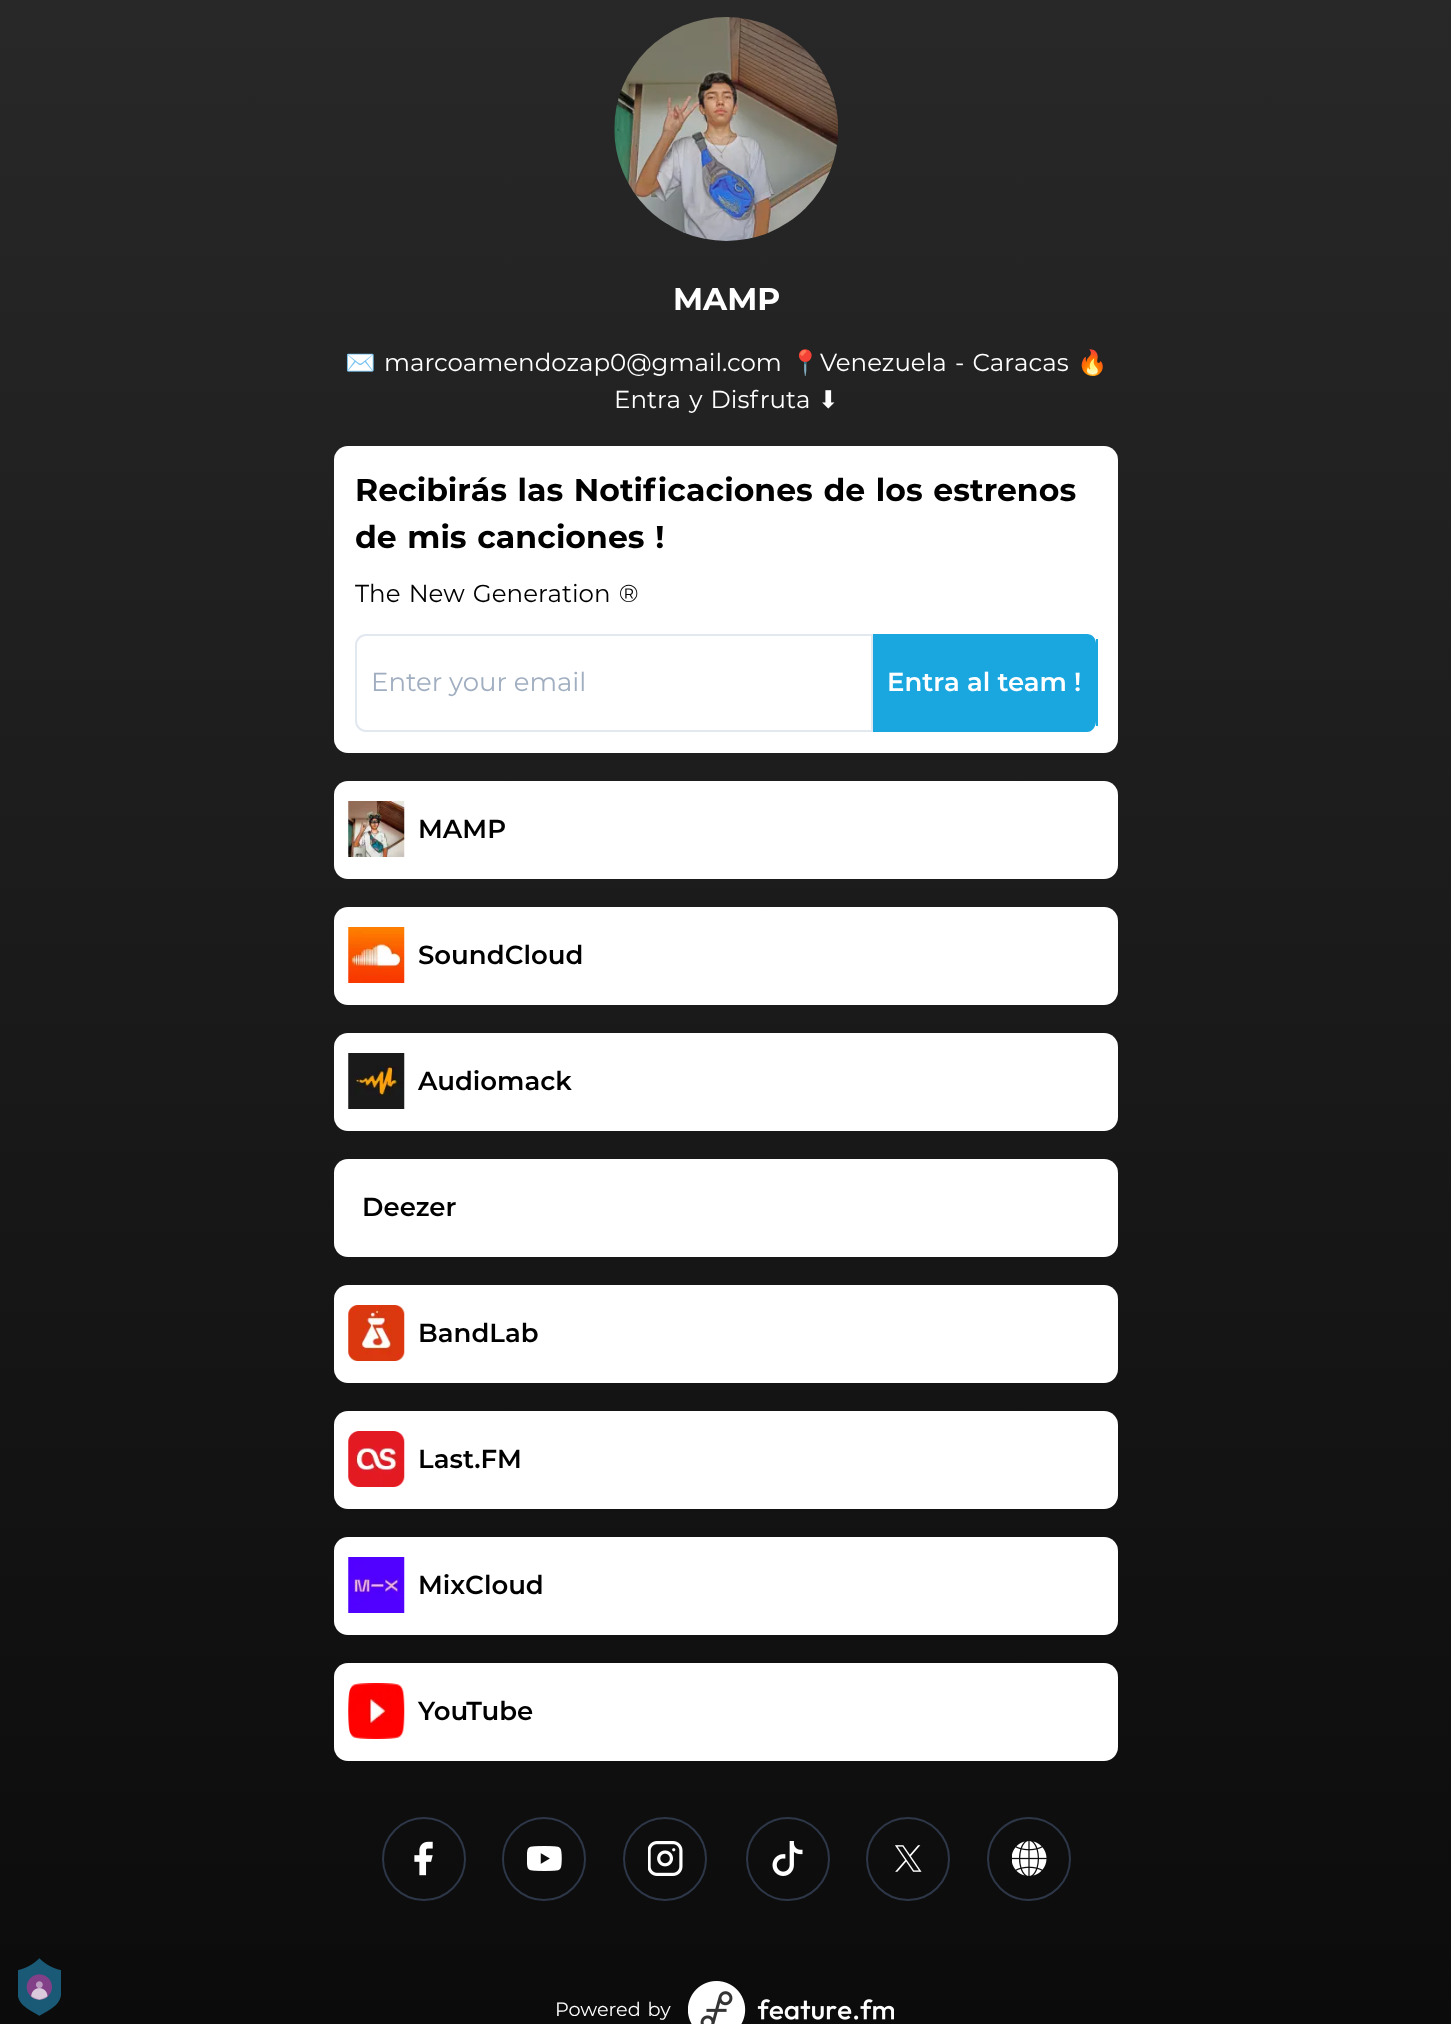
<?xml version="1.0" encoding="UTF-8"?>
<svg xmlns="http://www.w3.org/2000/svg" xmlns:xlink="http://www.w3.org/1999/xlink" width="1451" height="2024">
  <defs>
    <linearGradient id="g1" gradientUnits="userSpaceOnUse" x1="726" y1="0" x2="726" y2="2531"><stop offset="0" stop-color="#282828" /><stop offset="1" stop-color="#040404" /></linearGradient>
  </defs>
  <rect width="100%" height="100%" fill="#ffffff" />
  <rect width="1451" height="2024" fill="url(#g1)" />
  <image x="18" y="1958" width="43" height="58" xlink:href="image1.png" />
  <image x="614" y="17" width="224" height="224" xlink:href="image2.png" />
  <rect x="334" y="446" width="784" height="307" rx="14" fill="#ffffff" />
  <path d="M 366 635 h 506 v 96 h -506 c -5.5 0 -10 -4.5 -10 -10 v -76 c 0 -5.5 4.5 -10 10 -10 z" fill="none" stroke="#e2e8f0" stroke-width="2" />
  <path d="M 873 634 h 214 c 5 0 9 4 9 10 v 77 c 0 6 -4 11 -9 11 h -214 z" fill="#1aa7e0" />
  <rect x="1096" y="639" width="2" height="87" fill="#1aa7e0" />
  <rect x="334" y="781" width="784" height="98" rx="14" fill="#ffffff" />
  <image x="348" y="801" width="57" height="56" xlink:href="image3.png" />
  <rect x="334" y="907" width="784" height="98" rx="14" fill="#ffffff" />
  <image x="348" y="927" width="57" height="56" xlink:href="image4.png" />
  <rect x="334" y="1033" width="784" height="98" rx="14" fill="#ffffff" />
  <image x="348" y="1053" width="57" height="56" xlink:href="image5.png" />
  <rect x="334" y="1159" width="784" height="98" rx="14" fill="#ffffff" />
  <rect x="334" y="1285" width="784" height="98" rx="14" fill="#ffffff" />
  <image x="348" y="1305" width="57" height="56" xlink:href="image6.png" />
  <rect x="334" y="1411" width="784" height="98" rx="14" fill="#ffffff" />
  <image x="348" y="1431" width="57" height="56" xlink:href="image7.png" />
  <rect x="334" y="1537" width="784" height="98" rx="14" fill="#ffffff" />
  <image x="348" y="1557" width="57" height="56" xlink:href="image8.png" />
  <rect x="334" y="1663" width="784" height="98" rx="14" fill="#ffffff" />
  <image x="348" y="1683" width="57" height="56" xlink:href="image9.png" />
  <circle cx="424" cy="1859" r="41" fill="none" stroke="#2d3748" stroke-width="2" />
  <image x="414" y="1841" width="19" height="35" xlink:href="image10.png" />
  <circle cx="544" cy="1859" r="41" fill="none" stroke="#2d3748" stroke-width="2" />
  <image x="527" y="1846" width="35" height="25" xlink:href="image11.png" />
  <circle cx="665" cy="1859" r="41" fill="none" stroke="#2d3748" stroke-width="2" />
  <image x="648" y="1841" width="35" height="35" xlink:href="image12.png" />
  <circle cx="788" cy="1859" r="41" fill="none" stroke="#2d3748" stroke-width="2" />
  <image x="772" y="1841" width="31" height="35" xlink:href="image13.png" />
  <circle cx="908" cy="1859" r="41" fill="none" stroke="#2d3748" stroke-width="2" />
  <image x="895" y="1845" width="27" height="27" xlink:href="image14.png" />
  <circle cx="1029" cy="1859" r="41" fill="none" stroke="#2d3748" stroke-width="2" />
  <image x="1012" y="1841" width="35" height="35" xlink:href="image15.png" />
  <image x="688" y="1981" width="206" height="43" xlink:href="image16.png" />
  <text x="673" y="310" style="font-family: Montserrat; font-size: 31.5px; font-weight: bold; fill: #ffffff">MAMP</text>
  <text x="345" y="371" style="font-family: Noto Color Emoji; font-size: 24.5px; fill: #ffffff">✉️</text>
  <text x="384" y="371" style="font-family: Montserrat; font-size: 24.5px; fill: #ffffff">marcoamendozap0@gmail.com</text>
  <text x="790" y="371" style="font-family: Noto Color Emoji; font-size: 24.5px; fill: #ffffff">📍</text>
  <text x="820" y="371" word-spacing="1.75" style="font-family: Montserrat; font-size: 24.5px; fill: #ffffff">Venezuela - Caracas</text>
  <text x="1077" y="371" style="font-family: Noto Color Emoji; font-size: 24.5px; fill: #ffffff">🔥</text>
  <text x="614" y="408" word-spacing="1.75" style="font-family: Montserrat; font-size: 24.5px; fill: #ffffff">Entra y Disfruta</text>
  <text x="818" y="408" style="font-family: DejaVu Sans; font-size: 24.5px; fill: #ffffff">⬇</text>
  <text x="355" y="501" word-spacing="1.75" style="font-family: Montserrat; font-size: 31.5px; font-weight: bold; fill: #000000">Recibirás las Notificaciones de los estrenos</text>
  <text x="355" y="548" word-spacing="1.75" style="font-family: Montserrat; font-size: 31.5px; font-weight: bold; fill: #000000">de mis canciones !</text>
  <text x="355" y="602" word-spacing="1.75" style="font-family: Montserrat; font-size: 24.5px; fill: #000000">The New Generation ®</text>
  <text x="371" y="691" style="font-family: Montserrat; font-size: 26px; fill: #a0aec0">Enter your email</text>
  <text x="887" y="691" style="font-family: Montserrat; font-size: 26px; font-weight: 600; fill: #ffffff">Entra al team !</text>
  <text x="418" y="838" style="font-family: Montserrat; font-size: 26px; font-weight: 600; fill: #000000">MAMP</text>
  <text x="418" y="964" style="font-family: Montserrat; font-size: 26px; font-weight: 600; fill: #000000">SoundCloud</text>
  <text x="418" y="1090" style="font-family: Montserrat; font-size: 26px; font-weight: 600; fill: #000000">Audiomack</text>
  <text x="362" y="1216" style="font-family: Montserrat; font-size: 26px; font-weight: 600; fill: #000000">Deezer</text>
  <text x="418" y="1342" style="font-family: Montserrat; font-size: 26px; font-weight: 600; fill: #000000">BandLab</text>
  <text x="418" y="1468" style="font-family: Montserrat; font-size: 26px; font-weight: 600; fill: #000000">Last.FM</text>
  <text x="418" y="1594" style="font-family: Montserrat; font-size: 26px; font-weight: 600; fill: #000000">MixCloud</text>
  <text x="418" y="1720" style="font-family: Montserrat; font-size: 26px; font-weight: 600; fill: #000000">YouTube</text>
  <text x="555" y="2016" word-spacing="1.75" style="font-family: Montserrat; font-size: 19.25px; fill: #ffffff">Powered by</text>
</svg>
